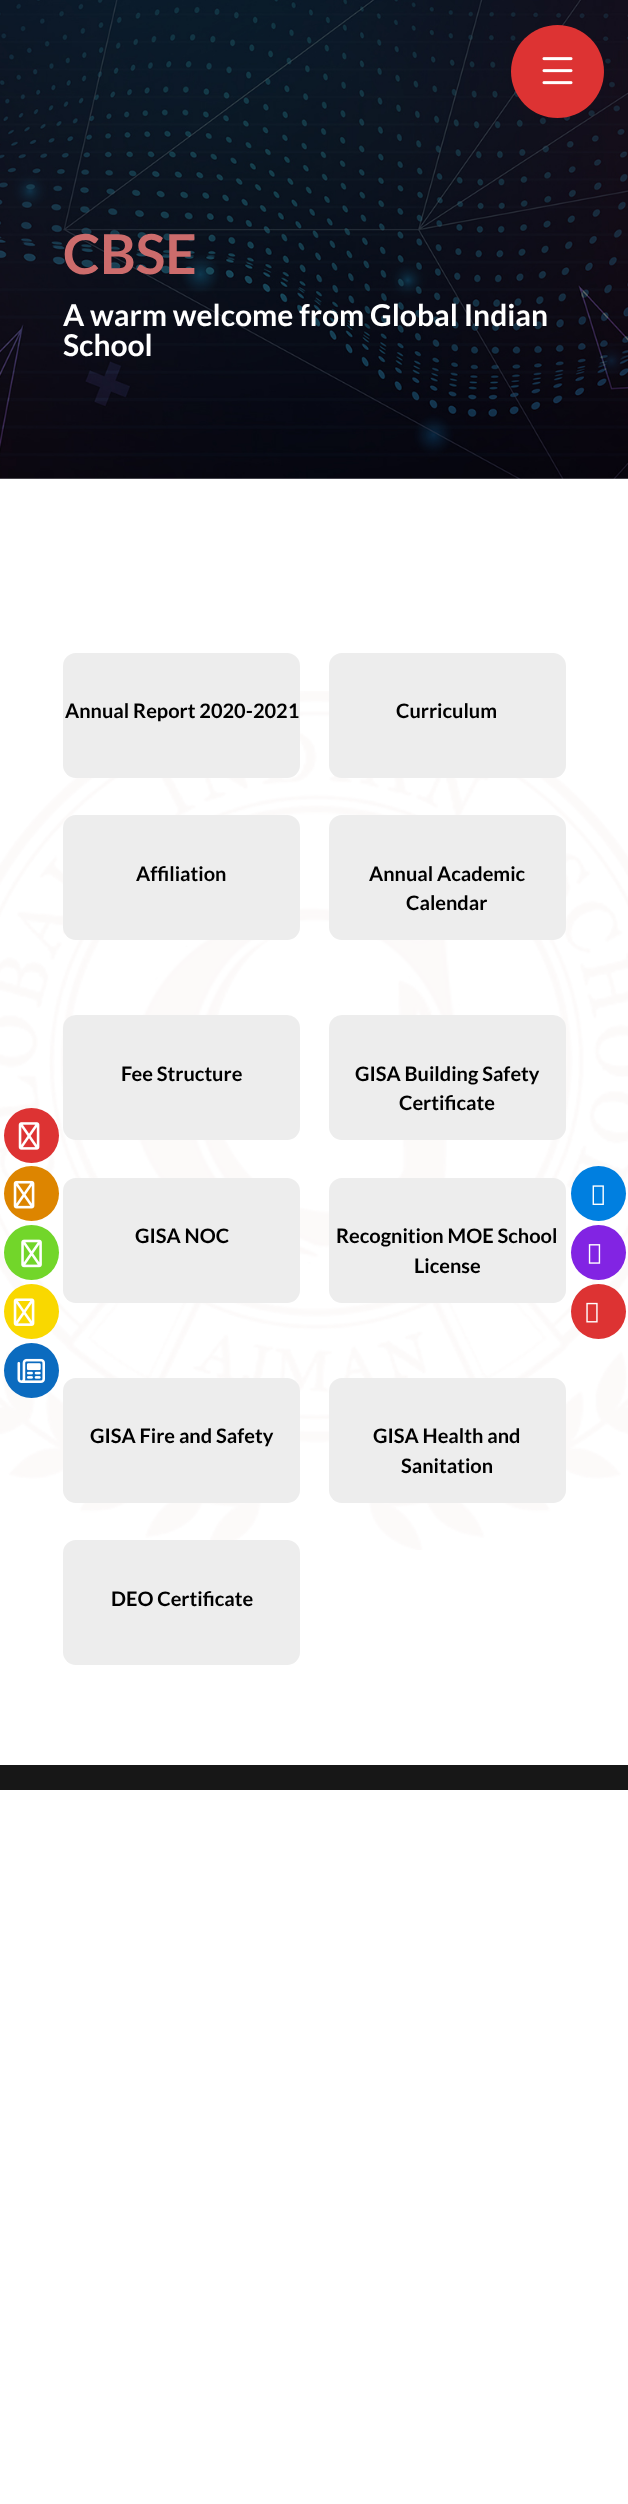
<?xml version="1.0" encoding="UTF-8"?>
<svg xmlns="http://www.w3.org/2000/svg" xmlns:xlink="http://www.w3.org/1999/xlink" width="628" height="2504">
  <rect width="100%" height="100%" fill="#ffffff" />
  <image x="0" y="0" width="628" height="479" xlink:href="image7.png" />
  <circle cx="557.5" cy="71.5" r="46.5" fill="#dd3333" />
  <image x="542" y="57" width="31" height="28" xlink:href="image1.png" />
  <image x="0" y="691" width="628" height="859" xlink:href="image8.png" />
  <circle cx="31.5" cy="1135.5" r="27.5" fill="#dd3333" />
  <image x="18" y="1122" width="22" height="28" xlink:href="image2.png" />
  <circle cx="31.5" cy="1193.5" r="27.5" fill="#dd8500" />
  <image x="13" y="1180" width="22" height="29" xlink:href="image3.png" />
  <circle cx="31.5" cy="1252.5" r="27.5" fill="#72d62a" />
  <image x="21" y="1239" width="21" height="29" xlink:href="image4.png" />
  <circle cx="31.5" cy="1311.5" r="27.5" fill="#f9d800" />
  <image x="13" y="1298" width="22" height="28" xlink:href="image5.png" />
  <circle cx="31.5" cy="1370.5" r="27.5" fill="#0b6bbf" />
  <image x="17" y="1358" width="28" height="25" xlink:href="image6.png" />
  <rect x="63" y="653" width="237" height="125" rx="13" fill="#ededed" />
  <rect x="329" y="653" width="237" height="125" rx="13" fill="#ededed" />
  <rect x="63" y="815" width="237" height="125" rx="13" fill="#ededed" />
  <rect x="329" y="815" width="237" height="125" rx="13" fill="#ededed" />
  <rect x="63" y="1015" width="237" height="125" rx="13" fill="#ededed" />
  <rect x="329" y="1015" width="237" height="125" rx="13" fill="#ededed" />
  <rect x="63" y="1178" width="237" height="125" rx="13" fill="#ededed" />
  <rect x="329" y="1178" width="237" height="125" rx="13" fill="#ededed" />
  <rect x="63" y="1378" width="237" height="125" rx="13" fill="#ededed" />
  <rect x="329" y="1378" width="237" height="125" rx="13" fill="#ededed" />
  <rect x="63" y="1540" width="237" height="125" rx="13" fill="#ededed" />
  <rect y="1765" width="628" height="25" fill="#171717" />
  <circle cx="598.5" cy="1193.5" r="27.5" fill="#007fe0" />
  <image x="592" y="1185" width="12" height="20" xlink:href="image9.png" />
  <circle cx="598.5" cy="1252.5" r="27.5" fill="#8224e3" />
  <image x="588" y="1244" width="13" height="20" xlink:href="image10.png" />
  <circle cx="598.5" cy="1311.5" r="27.5" fill="#dd3333" />
  <image x="586" y="1302" width="12" height="21" xlink:href="image11.png" />
  <text x="63" y="274" style="font-family: Lato; font-size: 55px; font-weight: bold; fill: #cc6c6c">CBSE</text>
  <text x="63" y="326" style="font-family: Lato; font-size: 30px; font-weight: bold; fill: #ffffff">A warm welcome from Global Indian</text>
  <text x="63" y="356" style="font-family: Lato; font-size: 30px; font-weight: bold; fill: #ffffff">School</text>
  <text x="65" y="718" style="font-family: Lato; font-size: 20px; font-weight: bold; fill: #000000">Annual Report 2020-2021</text>
  <text x="396" y="718" style="font-family: Lato; font-size: 20px; font-weight: bold; fill: #000000">Curriculum</text>
  <text x="136" y="881" style="font-family: Lato; font-size: 20px; font-weight: bold; fill: #000000">Affiliation</text>
  <text x="369" y="881" style="font-family: Lato; font-size: 20px; font-weight: bold; fill: #000000">Annual Academic</text>
  <text x="406" y="910" style="font-family: Lato; font-size: 20px; font-weight: bold; fill: #000000">Calendar</text>
  <text x="121" y="1081" style="font-family: Lato; font-size: 20px; font-weight: bold; fill: #000000">Fee Structure</text>
  <text x="355" y="1081" style="font-family: Lato; font-size: 20px; font-weight: bold; fill: #000000">GISA Building Safety</text>
  <text x="399" y="1110" style="font-family: Lato; font-size: 20px; font-weight: bold; fill: #000000">Certificate</text>
  <text x="135" y="1243" style="font-family: Lato; font-size: 20px; font-weight: bold; fill: #000000">GISA NOC</text>
  <text x="336" y="1243" style="font-family: Lato; font-size: 20px; font-weight: bold; fill: #000000">Recognition MOE School</text>
  <text x="414" y="1273" style="font-family: Lato; font-size: 20px; font-weight: bold; fill: #000000">License</text>
  <text x="90" y="1443" style="font-family: Lato; font-size: 20px; font-weight: bold; fill: #000000">GISA Fire and Safety</text>
  <text x="373" y="1443" style="font-family: Lato; font-size: 20px; font-weight: bold; fill: #000000">GISA Health and</text>
  <text x="401" y="1473" style="font-family: Lato; font-size: 20px; font-weight: bold; fill: #000000">Sanitation</text>
  <text x="111" y="1606" style="font-family: Lato; font-size: 20px; font-weight: bold; fill: #000000">DEO Certificate</text>
</svg>
